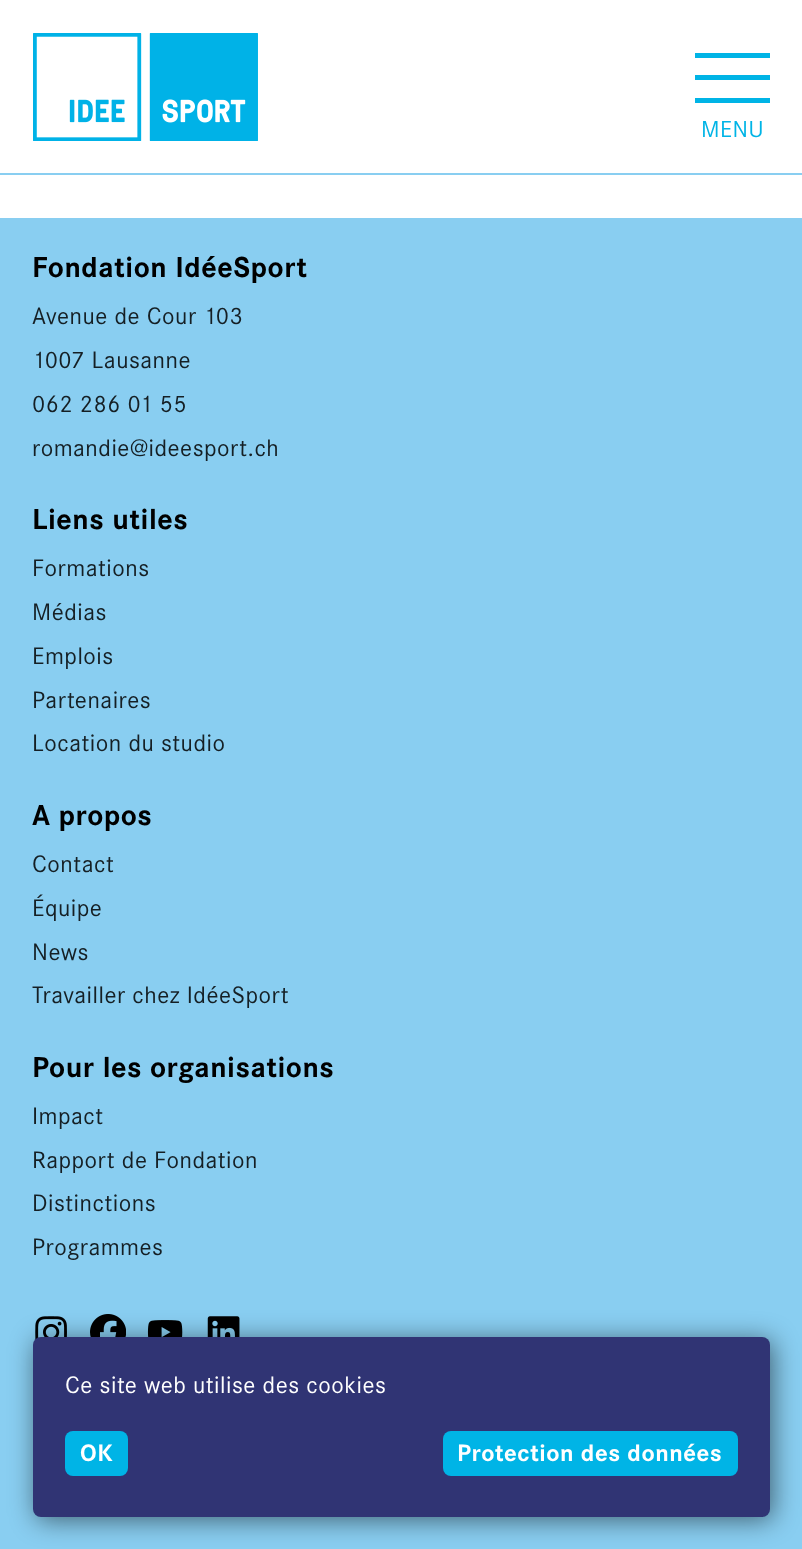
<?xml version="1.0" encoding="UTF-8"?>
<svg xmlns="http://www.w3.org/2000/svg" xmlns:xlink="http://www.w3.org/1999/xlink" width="802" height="1549">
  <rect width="100%" height="100%" fill="#ffffff" />
  <rect y="173" width="802" height="2" fill="#89cef1" />
  <image x="33" y="33" width="225" height="108" xlink:href="image1.png" />
  <rect x="695" y="53" width="75" height="5" fill="#00b4e6" />
  <rect x="695" y="75" width="75" height="5" fill="#00b4e6" />
  <rect x="695" y="98" width="75" height="5" fill="#00b4e6" />
  <rect y="218" width="802" height="1331" fill="#89cef1" />
  <image x="35" y="1316" width="32" height="24" xlink:href="image2.png" />
  <image x="90" y="1314" width="36" height="23" xlink:href="image3.png" />
  <image x="147" y="1320" width="36" height="17" xlink:href="image4.png" />
  <image x="207" y="1316" width="33" height="21" xlink:href="image5.png" />
  <rect x="36" y="1340" width="737" height="180" rx="8" fill="#000000" fill-opacity="0.53" filter="blur(13px)" />
  <rect x="33" y="1337" width="737" height="180" rx="8" fill="#303474" />
  <rect x="65" y="1431" width="63" height="45" rx="8" fill="#00b4e6" />
  <rect x="443" y="1431" width="295" height="45" rx="8" fill="#00b4e6" />
  <text x="701" y="137" style="font-family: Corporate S; font-size: 24px; letter-spacing: 0.5px; fill: #00b4e6">MENU</text>
  <text x="32" y="277" style="font-family: Corporate S; font-size: 30px; font-weight: bold; letter-spacing: 0.5px; fill: #000000">Fondation IdéeSport</text>
  <text x="32" y="324" style="font-family: Corporate S; font-size: 24.75px; letter-spacing: 0.5px; fill: #151f24">Avenue de Cour 103</text>
  <text x="32" y="368" style="font-family: Corporate S; font-size: 24.75px; letter-spacing: 0.5px; fill: #151f24">1007 Lausanne</text>
  <text x="32" y="412" style="font-family: Corporate S; font-size: 24.75px; letter-spacing: 0.5px; fill: #151f24">062 286 01 55</text>
  <text x="32" y="456" style="font-family: Corporate S; font-size: 24.75px; letter-spacing: 0.5px; fill: #151f24">romandie@ideesport.ch</text>
  <text x="32" y="529" style="font-family: Corporate S; font-size: 30px; font-weight: bold; letter-spacing: 0.5px; fill: #000000">Liens utiles</text>
  <text x="32" y="576" style="font-family: Corporate S; font-size: 24.75px; letter-spacing: 0.5px; fill: #151f24">Formations</text>
  <text x="32" y="620" style="font-family: Corporate S; font-size: 24.75px; letter-spacing: 0.5px; fill: #151f24">Médias</text>
  <text x="32" y="664" style="font-family: Corporate S; font-size: 24.75px; letter-spacing: 0.5px; fill: #151f24">Emplois</text>
  <text x="32" y="708" style="font-family: Corporate S; font-size: 24.75px; letter-spacing: 0.5px; fill: #151f24">Partenaires</text>
  <text x="32" y="751" style="font-family: Corporate S; font-size: 24.75px; letter-spacing: 0.5px; fill: #151f24">Location du studio</text>
  <text x="32" y="825" style="font-family: Corporate S; font-size: 30px; font-weight: bold; letter-spacing: 0.5px; fill: #000000">A propos</text>
  <text x="32" y="872" style="font-family: Corporate S; font-size: 24.75px; letter-spacing: 0.5px; fill: #151f24">Contact</text>
  <text x="32" y="916" style="font-family: Corporate S; font-size: 24.75px; letter-spacing: 0.5px; fill: #151f24">Équipe</text>
  <text x="32" y="960" style="font-family: Corporate S; font-size: 24.75px; letter-spacing: 0.5px; fill: #151f24">News</text>
  <text x="32" y="1003" style="font-family: Corporate S; font-size: 24.75px; letter-spacing: 0.5px; fill: #151f24">Travailler chez IdéeSport</text>
  <text x="32" y="1077" style="font-family: Corporate S; font-size: 30px; font-weight: bold; letter-spacing: 0.5px; fill: #000000">Pour les organisations</text>
  <text x="32" y="1124" style="font-family: Corporate S; font-size: 24.75px; letter-spacing: 0.5px; fill: #151f24">Impact</text>
  <text x="32" y="1168" style="font-family: Corporate S; font-size: 24.75px; letter-spacing: 0.5px; fill: #151f24">Rapport de Fondation</text>
  <text x="32" y="1211" style="font-family: Corporate S; font-size: 24.75px; letter-spacing: 0.5px; fill: #151f24">Distinctions</text>
  <text x="32" y="1255" style="font-family: Corporate S; font-size: 24.75px; letter-spacing: 0.5px; fill: #151f24">Programmes</text>
  <text x="65" y="1393" style="font-family: Corporate S; font-size: 24.75px; letter-spacing: 0.5px; fill: #ffffff">Ce site web utilise des cookies</text>
  <text x="80" y="1461" style="font-family: Corporate S; font-size: 24.75px; font-weight: bold; letter-spacing: 0.5px; fill: #ffffff">OK</text>
  <text x="457" y="1461" style="font-family: Corporate S; font-size: 24.75px; font-weight: bold; letter-spacing: 0.5px; fill: #ffffff">Protection des données</text>
</svg>
